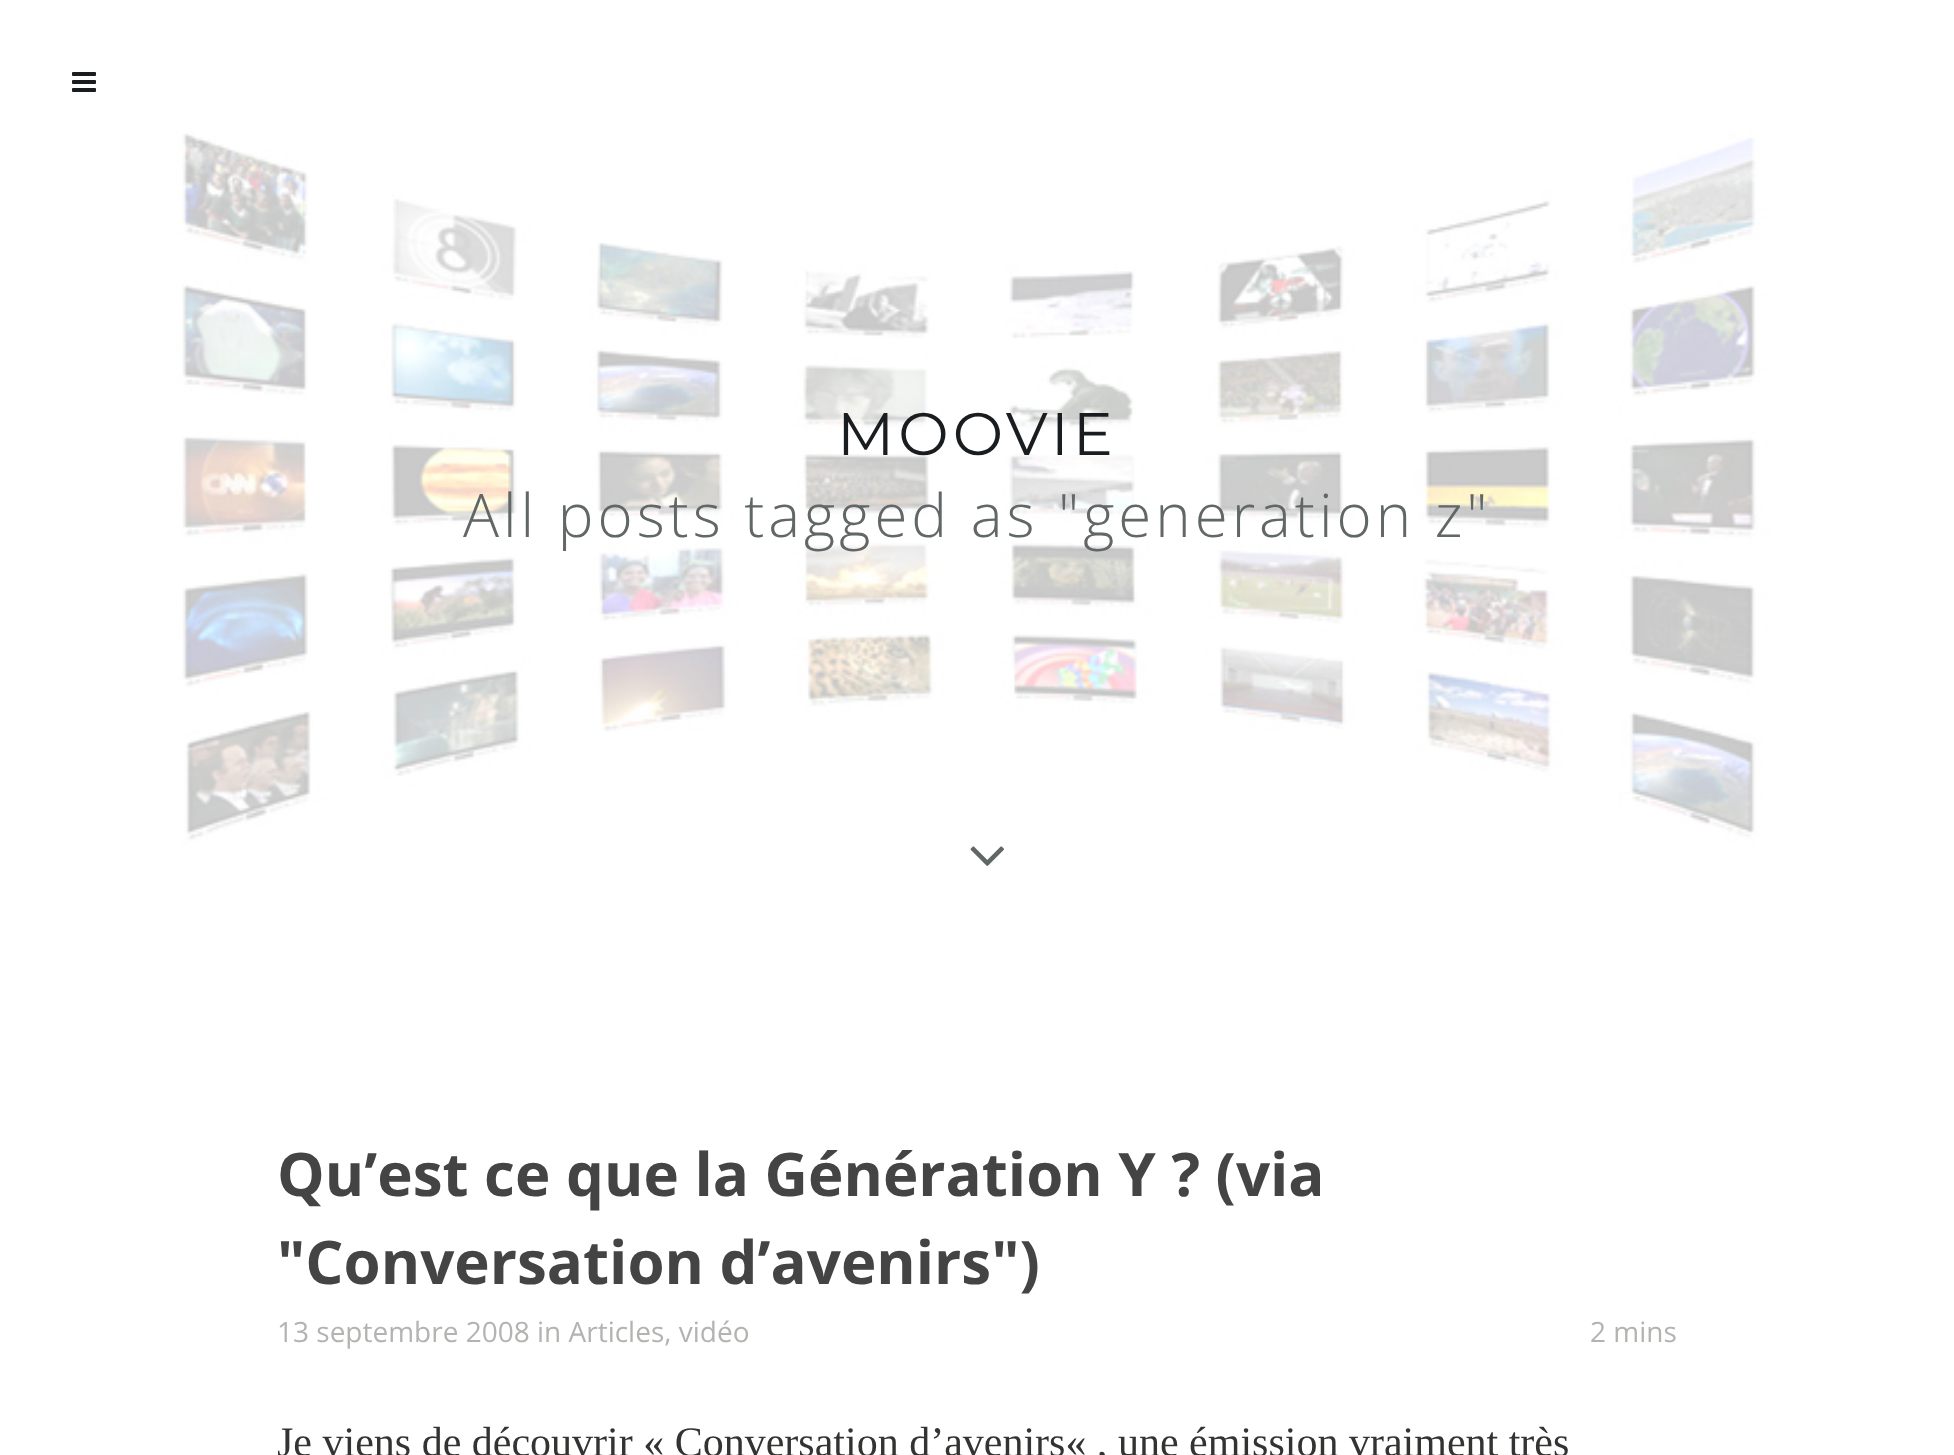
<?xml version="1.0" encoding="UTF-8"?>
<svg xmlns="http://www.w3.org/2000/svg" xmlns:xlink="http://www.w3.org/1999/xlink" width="1954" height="1455">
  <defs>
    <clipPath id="clip1"><rect x="278" y="1130" width="1400" height="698" /></clipPath>
  </defs>
  <rect width="100%" height="100%" fill="#ffffff" />
  <image x="0" y="0" width="1954" height="970" xlink:href="image2.png" />
  <image x="72" y="72" width="24" height="20" xlink:href="image1.png" />
  <image x="970" y="846" width="34" height="20" xlink:href="image3.png" />
  <text x="837" y="455" style="font-family: Montserrat; font-size: 60px; font-weight: 100; letter-spacing: 4px; fill: #191d20">MOOVIE</text>
  <text x="463" y="537" style="font-family: Open Sans; font-size: 60px; font-weight: 300; letter-spacing: 4px; fill: #616666">All posts tagged as "generation z"</text>
  <text x="277" y="1196" style="font-family: Open Sans; font-size: 60px; font-weight: bold; fill: #444444">Qu’est ce que la Génération Y ? (via</text>
  <text x="277" y="1284" style="font-family: Open Sans; font-size: 60px; font-weight: bold; fill: #444444">"Conversation d’avenirs")</text>
  <text x="277" y="1342" style="font-family: Open Sans; font-size: 28px; fill: #b3b3b1">13 septembre 2008 in Articles, vidéo</text>
  <text x="1590" y="1342" style="font-family: Open Sans; font-size: 28px; fill: #b3b3b1">2 mins</text>
  <g clip-path="url(#clip1)">
    <text x="277" y="1456" style="font-family: Liberation Serif; font-size: 42px; fill: #333332">Je viens de découvrir « Conversation d’avenirs« , une émission vraiment très</text>
  </g>
</svg>
